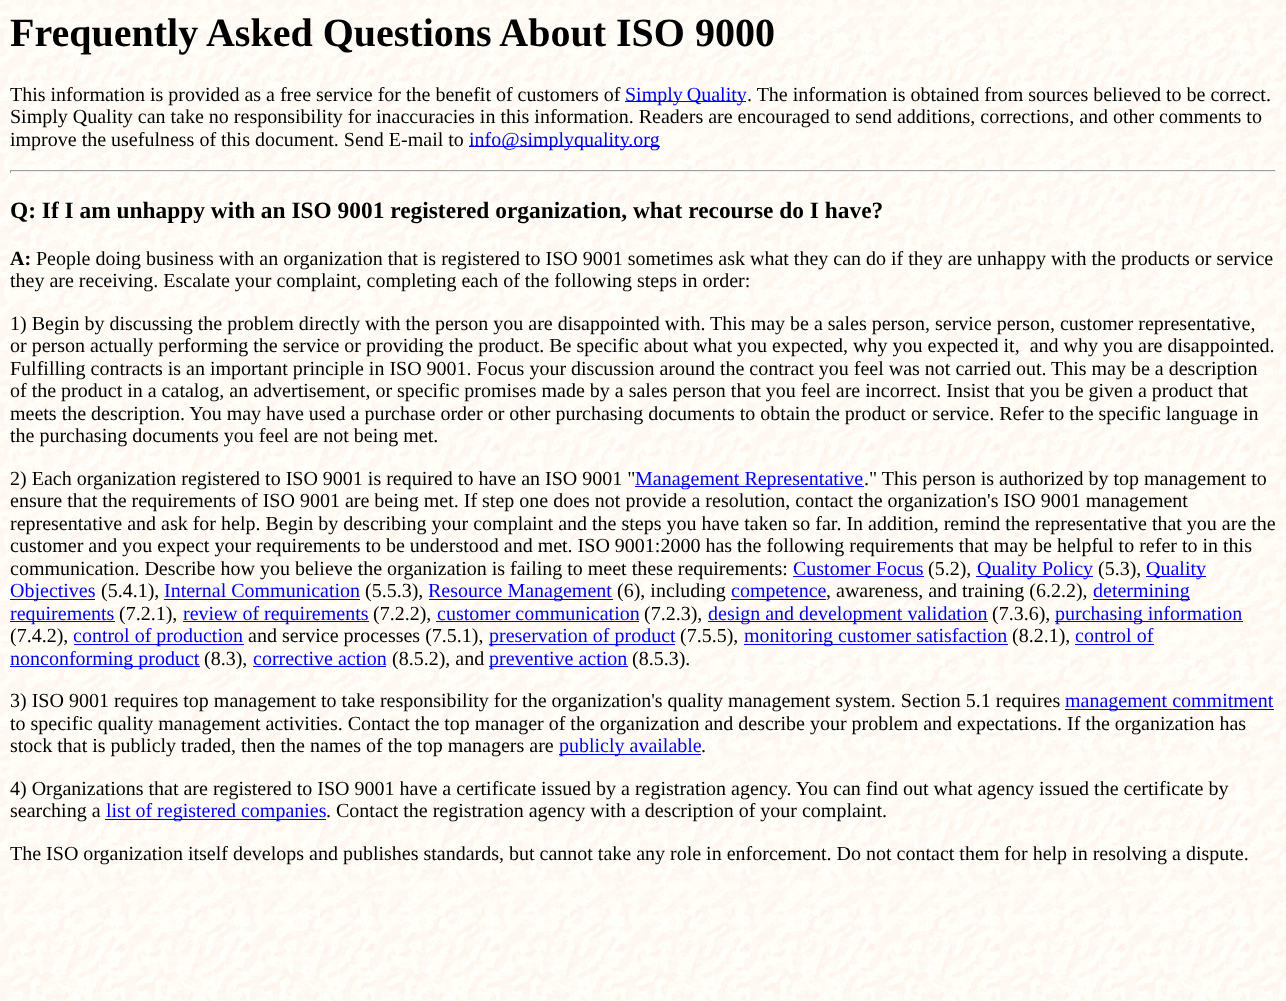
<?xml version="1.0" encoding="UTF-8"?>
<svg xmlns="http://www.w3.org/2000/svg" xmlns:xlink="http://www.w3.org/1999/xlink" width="1286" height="1001">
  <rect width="100%" height="100%" fill="#ffffff" />
  <image x="0" y="0" width="1286" height="1001" xlink:href="image1.png" />
  <rect x="625" y="101" width="121" height="1" fill="#0000ee" />
  <rect x="469" y="146" width="191" height="1" fill="#0000ee" />
  <rect x="10" y="170" width="1266" height="1" fill="#9f9f9f" />
  <rect x="1275" y="170" width="1" height="3" fill="#eeeeee" />
  <rect x="10" y="171" width="1266" height="1" fill="#eeeeee" />
  <rect x="10" y="170" width="1" height="3" fill="#9f9f9f" />
  <rect x="635" y="486" width="229" height="1" fill="#0000ee" />
  <rect x="793" y="576" width="131" height="1" fill="#0000ee" />
  <rect x="976" y="576" width="117" height="1" fill="#0000ee" />
  <rect x="1146" y="576" width="60" height="1" fill="#0000ee" />
  <rect x="10" y="599" width="85" height="1" fill="#0000ee" />
  <rect x="164" y="599" width="196" height="1" fill="#0000ee" />
  <rect x="429" y="599" width="184" height="1" fill="#0000ee" />
  <rect x="731" y="599" width="95" height="1" fill="#0000ee" />
  <rect x="1093" y="599" width="97" height="1" fill="#0000ee" />
  <rect x="10" y="621" width="105" height="1" fill="#0000ee" />
  <rect x="183" y="621" width="186" height="1" fill="#0000ee" />
  <rect x="436" y="621" width="203" height="1" fill="#0000ee" />
  <rect x="708" y="621" width="280" height="1" fill="#0000ee" />
  <rect x="1055" y="621" width="188" height="1" fill="#0000ee" />
  <rect x="74" y="644" width="170" height="1" fill="#0000ee" />
  <rect x="489" y="644" width="186" height="1" fill="#0000ee" />
  <rect x="744" y="644" width="264" height="1" fill="#0000ee" />
  <rect x="1075" y="644" width="79" height="1" fill="#0000ee" />
  <rect x="10" y="666" width="190" height="1" fill="#0000ee" />
  <rect x="253" y="666" width="133" height="1" fill="#0000ee" />
  <rect x="489" y="666" width="139" height="1" fill="#0000ee" />
  <rect x="1065" y="709" width="209" height="1" fill="#0000ee" />
  <rect x="559" y="754" width="142" height="1" fill="#0000ee" />
  <rect x="105" y="819" width="221" height="1" fill="#0000ee" />
  <text x="10" y="46" style="font-family: Liberation Serif; font-size: 40px; font-weight: bold; fill: #000000">Frequently Asked Questions About ISO 9000</text>
  <text x="10" y="101" style="font-family: Liberation Serif; font-size: 20px; fill: #000000">This information is provided as a free service for the benefit of customers of</text>
  <text x="625" y="101" word-spacing="-1" style="font-family: Liberation Serif; font-size: 20px; fill: #0000ee">Simply Quality</text>
  <text x="747" y="101" style="font-family: Liberation Serif; font-size: 20px; fill: #000000">. The information is obtained from sources believed to be correct.</text>
  <text x="10" y="123" style="font-family: Liberation Serif; font-size: 20px; fill: #000000">Simply Quality can take no responsibility for inaccuracies in this information. Readers are encouraged to send additions, corrections, and other comments to</text>
  <text x="10" y="146" style="font-family: Liberation Serif; font-size: 20px; fill: #000000">improve the usefulness of this document. Send E-mail to</text>
  <text x="469" y="146" style="font-family: Liberation Serif; font-size: 20px; fill: #0000ee">info@simplyquality.org</text>
  <text x="10" y="218" style="font-family: Liberation Serif; font-size: 23.4px; font-weight: bold; fill: #000000">Q: If I am unhappy with an ISO 9001 registered organization, what recourse do I have?</text>
  <text x="10" y="265" style="font-family: Liberation Serif; font-size: 20px; font-weight: bold; fill: #000000">A:</text>
  <text x="36" y="265" style="font-family: Liberation Serif; font-size: 20px; fill: #000000">People doing business with an organization that is registered to ISO 9001 sometimes ask what they can do if they are unhappy with the products or service</text>
  <text x="10" y="287" style="font-family: Liberation Serif; font-size: 20px; fill: #000000">they are receiving. Escalate your complaint, completing each of the following steps in order:</text>
  <text x="10" y="330" style="font-family: Liberation Serif; font-size: 20px; fill: #000000">1) Begin by discussing the problem directly with the person you are disappointed with. This may be a sales person, service person, customer representative,</text>
  <text x="10" y="352" style="font-family: Liberation Serif; font-size: 20px; fill: #000000" xml:space="preserve">or person actually performing the service or providing the product. Be specific about what you expected, why you expected it,  and why you are disappointed.</text>
  <text x="10" y="375" style="font-family: Liberation Serif; font-size: 20px; fill: #000000">Fulfilling contracts is an important principle in ISO 9001. Focus your discussion around the contract you feel was not carried out.</text>
  <text x="1051" y="375" style="font-family: Liberation Serif; font-size: 20px; fill: #000000">This may be a description</text>
  <text x="10" y="397" style="font-family: Liberation Serif; font-size: 20px; fill: #000000">of the product in a catalog, an advertisement, or specific promises made by a sales person that you feel are incorrect. Insist that you be given a product that</text>
  <text x="10" y="420" style="font-family: Liberation Serif; font-size: 20px; fill: #000000">meets the description. You may have used a purchase order or other purchasing documents to obtain the product or service. Refer to the specific language in</text>
  <text x="10" y="442" style="font-family: Liberation Serif; font-size: 20px; fill: #000000">the purchasing documents you feel are not being met.</text>
  <text x="10" y="485" style="font-family: Liberation Serif; font-size: 20px; fill: #000000">2) Each organization registered to ISO 9001 is required to have an ISO 9001 "</text>
  <text x="635" y="485" style="font-family: Liberation Serif; font-size: 20px; fill: #0000ee">Management Representative</text>
  <text x="864" y="485" style="font-family: Liberation Serif; font-size: 20px; fill: #000000">." This person is authorized by top management to</text>
  <text x="10" y="507" style="font-family: Liberation Serif; font-size: 20px; fill: #000000">ensure that the requirements of ISO 9001 are being met. If step one does not provide a resolution, contact the organization's ISO 9001 management</text>
  <text x="10" y="530" style="font-family: Liberation Serif; font-size: 20px; fill: #000000">representative and ask for help. Begin by describing your complaint and the steps you have taken so far. In addition, remind the representative that you are the</text>
  <text x="10" y="552" style="font-family: Liberation Serif; font-size: 20px; fill: #000000">customer and you expect your requirements to be understood and met. ISO 9001:2000 has the following requirements that may be helpful to refer to in this</text>
  <text x="10" y="575" style="font-family: Liberation Serif; font-size: 20px; fill: #000000">communication. Describe how you believe the organization is failing to meet these requirements:</text>
  <text x="793" y="575" style="font-family: Liberation Serif; font-size: 20px; fill: #0000ee">Customer Focus</text>
  <text x="928" y="575" style="font-family: Liberation Serif; font-size: 20px; fill: #000000">(5.2),</text>
  <text x="977" y="575" style="font-family: Liberation Serif; font-size: 20px; fill: #0000ee">Quality Policy</text>
  <text x="1098" y="575" style="font-family: Liberation Serif; font-size: 20px; fill: #000000">(5.3),</text>
  <text x="1146" y="575" style="font-family: Liberation Serif; font-size: 20px; fill: #0000ee">Quality</text>
  <text x="10" y="597" style="font-family: Liberation Serif; font-size: 20px; fill: #0000ee">Objectives</text>
  <text x="101" y="597" style="font-family: Liberation Serif; font-size: 20px; fill: #000000">(5.4.1),</text>
  <text x="164" y="597" style="font-family: Liberation Serif; font-size: 20px; fill: #0000ee">Internal Communication</text>
  <text x="365" y="597" style="font-family: Liberation Serif; font-size: 20px; fill: #000000">(5.5.3),</text>
  <text x="428" y="597" style="font-family: Liberation Serif; font-size: 20px; fill: #0000ee">Resource Management</text>
  <text x="617" y="597" style="font-family: Liberation Serif; font-size: 20px; fill: #000000">(6), including</text>
  <text x="731" y="597" style="font-family: Liberation Serif; font-size: 20px; fill: #0000ee">competence</text>
  <text x="826" y="597" style="font-family: Liberation Serif; font-size: 20px; fill: #000000">, awareness, and training (6.2.2),</text>
  <text x="1093" y="597" style="font-family: Liberation Serif; font-size: 20px; fill: #0000ee">determining</text>
  <text x="10" y="620" style="font-family: Liberation Serif; font-size: 20px; fill: #0000ee">requirements</text>
  <text x="119" y="620" style="font-family: Liberation Serif; font-size: 20px; fill: #000000">(7.2.1),</text>
  <text x="183" y="620" style="font-family: Liberation Serif; font-size: 20px; fill: #0000ee">review of requirements</text>
  <text x="373" y="620" style="font-family: Liberation Serif; font-size: 20px; fill: #000000">(7.2.2),</text>
  <text x="437" y="620" style="font-family: Liberation Serif; font-size: 20px; fill: #0000ee">customer communication</text>
  <text x="644" y="620" style="font-family: Liberation Serif; font-size: 20px; fill: #000000">(7.2.3),</text>
  <text x="708" y="620" style="font-family: Liberation Serif; font-size: 20px; fill: #0000ee">design and development validation</text>
  <text x="992" y="620" style="font-family: Liberation Serif; font-size: 20px; fill: #000000">(7.3.6),</text>
  <text x="1055" y="620" style="font-family: Liberation Serif; font-size: 20px; fill: #0000ee">purchasing information</text>
  <text x="10" y="642" style="font-family: Liberation Serif; font-size: 20px; fill: #000000">(7.4.2),</text>
  <text x="73" y="642" style="font-family: Liberation Serif; font-size: 20px; fill: #0000ee">control of production</text>
  <text x="248" y="642" style="font-family: Liberation Serif; font-size: 20px; fill: #000000">and service processes (7.5.1),</text>
  <text x="489" y="642" style="font-family: Liberation Serif; font-size: 20px; fill: #0000ee">preservation of product</text>
  <text x="680" y="642" style="font-family: Liberation Serif; font-size: 20px; fill: #000000">(7.5.5),</text>
  <text x="744" y="642" style="font-family: Liberation Serif; font-size: 20px; fill: #0000ee">monitoring customer satisfaction</text>
  <text x="1012" y="642" style="font-family: Liberation Serif; font-size: 20px; fill: #000000">(8.2.1),</text>
  <text x="1075" y="642" style="font-family: Liberation Serif; font-size: 20px; fill: #0000ee">control of</text>
  <text x="10" y="665" style="font-family: Liberation Serif; font-size: 20px; fill: #0000ee">nonconforming product</text>
  <text x="204" y="665" style="font-family: Liberation Serif; font-size: 20px; fill: #000000">(8.3),</text>
  <text x="253" y="665" style="font-family: Liberation Serif; font-size: 20px; fill: #0000ee">corrective action</text>
  <text x="392" y="665" style="font-family: Liberation Serif; font-size: 20px; fill: #000000">(8.5.2), and</text>
  <text x="489" y="665" style="font-family: Liberation Serif; font-size: 20px; fill: #0000ee">preventive action</text>
  <text x="632" y="665" style="font-family: Liberation Serif; font-size: 20px; fill: #000000">(8.5.3).</text>
  <text x="10" y="707" style="font-family: Liberation Serif; font-size: 20px; fill: #000000">3) ISO 9001 requires top management to take responsibility for the organization's quality management system. Section 5.1 requires</text>
  <text x="1065" y="707" style="font-family: Liberation Serif; font-size: 20px; fill: #0000ee">management commitment</text>
  <text x="10" y="730" style="font-family: Liberation Serif; font-size: 20px; fill: #000000">to specific quality management activities. Contact the top manager of the organization and describe your problem and expectations. If the organization has</text>
  <text x="10" y="752" style="font-family: Liberation Serif; font-size: 20px; fill: #000000">stock that is publicly traded, then the names of the top managers are</text>
  <text x="559" y="752" style="font-family: Liberation Serif; font-size: 20px; fill: #0000ee">publicly available</text>
  <text x="701" y="752" style="font-family: Liberation Serif; font-size: 20px; fill: #000000">.</text>
  <text x="10" y="795" style="font-family: Liberation Serif; font-size: 20px; fill: #000000">4) Organizations that are registered to ISO 9001 have a certificate issued by a registration agency. You can find out what agency issued the certificate by</text>
  <text x="10" y="817" style="font-family: Liberation Serif; font-size: 20px; fill: #000000">searching a</text>
  <text x="106" y="817" style="font-family: Liberation Serif; font-size: 20px; fill: #0000ee">list of registered companies</text>
  <text x="326" y="817" style="font-family: Liberation Serif; font-size: 20px; fill: #000000">. Contact the registration agency with a description of your complaint.</text>
  <text x="10" y="860" style="font-family: Liberation Serif; font-size: 20px; fill: #000000">The ISO organization itself develops and publishes standards, but cannot take any role in enforcement. Do not contact them for help in resolving a dispute.</text>
</svg>
